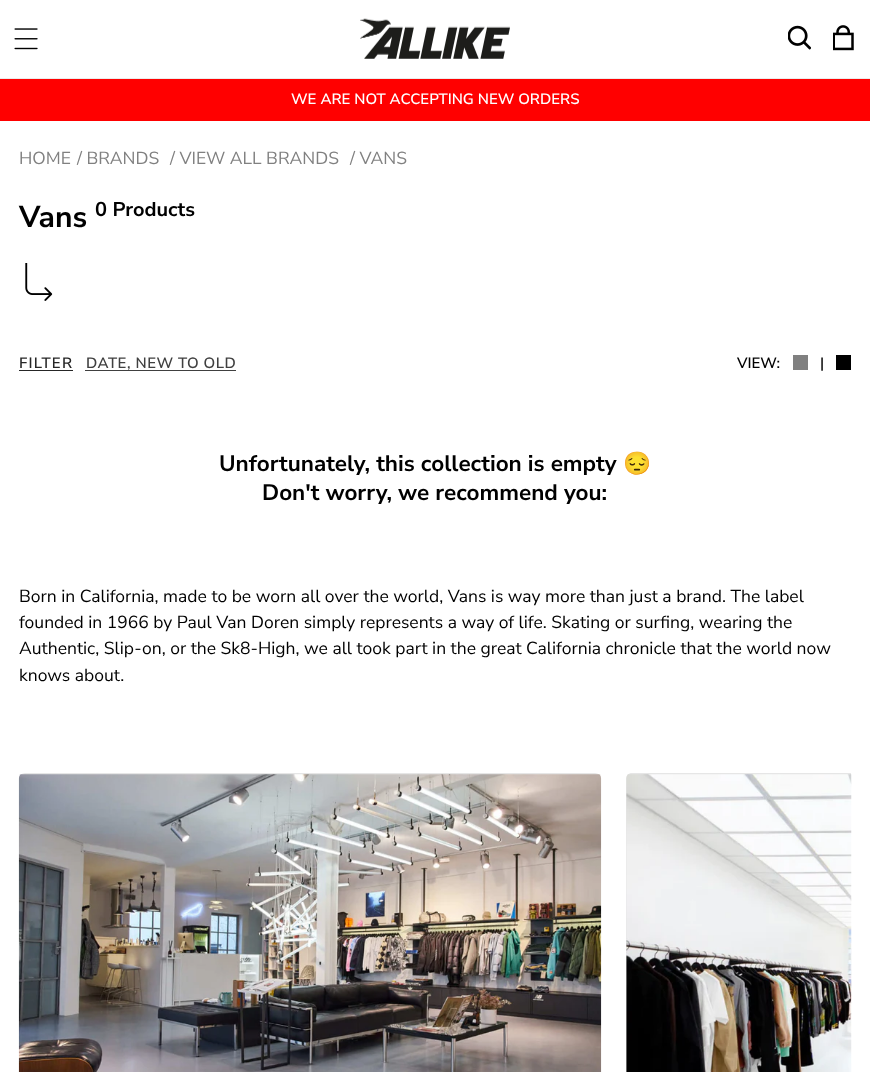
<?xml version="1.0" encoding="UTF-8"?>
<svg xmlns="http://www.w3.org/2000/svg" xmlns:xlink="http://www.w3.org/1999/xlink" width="870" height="1072">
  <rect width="100%" height="100%" fill="#ffffff" />
  <rect y="78" width="870" height="1" fill="#ebebeb" />
  <image x="14" y="28" width="24" height="22" xlink:href="image1.png" />
  <image x="360" y="18" width="150" height="41" xlink:href="image2.png" />
  <image x="788" y="25" width="23" height="25" xlink:href="image3.png" />
  <image x="833" y="25" width="21" height="26" xlink:href="image4.png" />
  <rect y="79" width="870" height="42" fill="#ff0000" />
  <image x="25" y="263" width="28" height="38" xlink:href="image5.png" />
  <rect x="19" y="370" width="54" height="1" fill="#262626" />
  <rect x="85" y="370" width="151" height="1" fill="#404040" />
  <rect x="793" y="355" width="15" height="15" fill="#808080" />
  <rect x="836" y="355" width="15" height="15" fill="#000000" />
  <rect x="19" y="773" width="582" height="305" rx="6" fill="#e6e6e6" />
  <image x="18" y="774" width="584" height="298" xlink:href="image6.png" />
  <path d="M 632 773 h 219 v 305 h -219 c -3.5 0 -6 -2.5 -6 -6 v -293 c 0 -3.5 2.5 -6 6 -6 z" fill="#e6e6e6" />
  <image x="626" y="774" width="226" height="298" xlink:href="image7.png" />
  <text x="291" y="104" style="font-family: Nunito Sans; font-size: 15px; font-weight: 600; fill: #ffffff">WE ARE NOT ACCEPTING NEW ORDERS</text>
  <text x="19" y="164" style="font-family: Nunito Sans; font-size: 17.5px; fill: #808080">HOME</text>
  <text x="77" y="164" style="font-family: Nunito Sans; font-size: 17.5px; fill: #808080">/ BRANDS</text>
  <text x="170" y="164" style="font-family: Nunito Sans; font-size: 17.5px; fill: #808080">/ VIEW ALL BRANDS</text>
  <text x="350" y="164" style="font-family: Nunito Sans; font-size: 17.5px; fill: #808080">/ VANS</text>
  <text x="19" y="227" style="font-family: Nunito Sans; font-size: 30px; font-weight: bold; fill: #000000">Vans</text>
  <text x="95" y="216" style="font-family: Nunito Sans; font-size: 20px; font-weight: bold; fill: #000000">0 Products</text>
  <text x="19" y="368" style="font-family: Nunito Sans; font-size: 15px; font-weight: 600; letter-spacing: 1.25px; fill: #262626">FILTER</text>
  <text x="86" y="368" style="font-family: Nunito Sans; font-size: 15px; font-weight: 600; letter-spacing: 0.5px; fill: #404040">DATE, NEW TO OLD</text>
  <text x="737" y="368" style="font-family: Nunito Sans; font-size: 15px; font-weight: 600; fill: #000000">VIEW:</text>
  <text x="820" y="368" style="font-family: Nunito Sans; font-size: 15px; font-weight: 600; fill: #000000">|</text>
  <text x="219" y="471" style="font-family: Nunito Sans; font-size: 22.5px; font-weight: bold; fill: #000000">Unfortunately, this collection is empty</text>
  <text x="623" y="471" style="font-family: Noto Color Emoji; font-size: 22.5px; font-weight: bold; fill: #000000">😔</text>
  <text x="262" y="500" style="font-family: Nunito Sans; font-size: 22.5px; font-weight: bold; fill: #000000">Don't worry, we recommend you:</text>
  <text x="19" y="602" style="font-family: Nunito Sans; font-size: 17.5px; fill: #000000">Born in California, made to be worn all over the world, Vans is way more than just a brand. The label</text>
  <text x="19" y="628" style="font-family: Nunito Sans; font-size: 17.5px; fill: #000000">founded in 1966 by Paul Van Doren simply represents a way of life. Skating or surfing, wearing the</text>
  <text x="19" y="654" style="font-family: Nunito Sans; font-size: 17.5px; fill: #000000">Authentic, Slip-on, or the Sk8-High, we all took part in the great California chronicle that the world now</text>
  <text x="19" y="681" style="font-family: Nunito Sans; font-size: 17.5px; fill: #000000">knows about.</text>
</svg>
